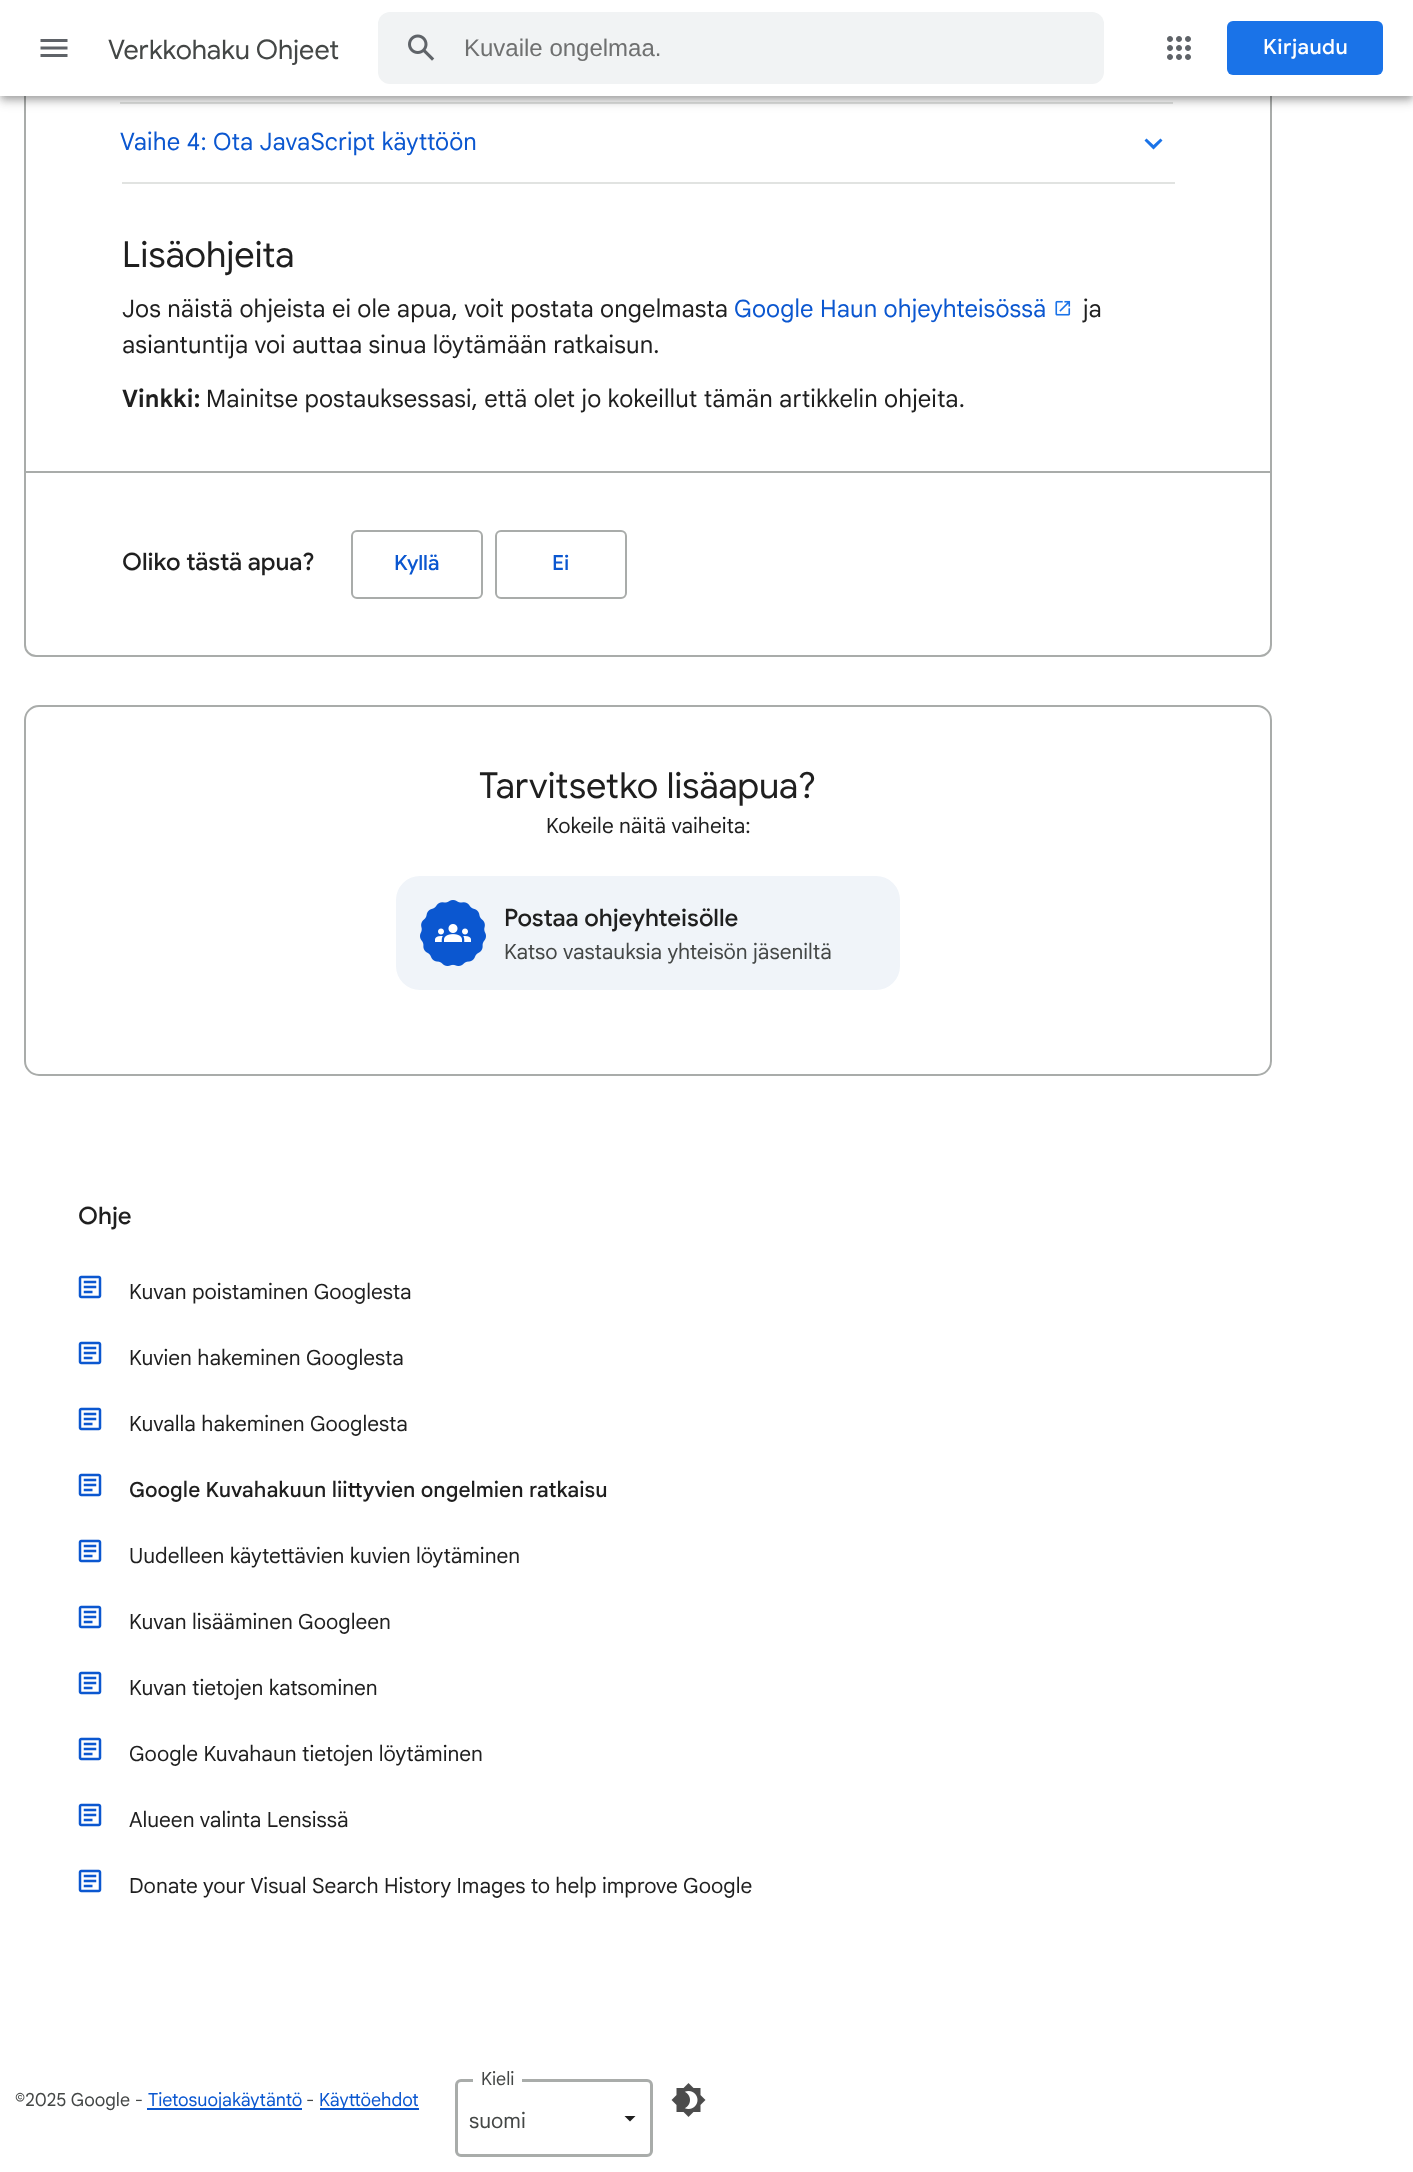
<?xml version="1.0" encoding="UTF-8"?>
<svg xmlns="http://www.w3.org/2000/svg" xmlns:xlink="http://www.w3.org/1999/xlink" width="1413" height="2172">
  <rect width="100%" height="100%" fill="#ffffff" />
  <rect x="25" y="-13" width="1246" height="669" rx="11" fill="none" stroke="#a9acaa" stroke-width="2" />
  <rect x="120" y="102" width="1053" height="2" fill="#e1e3e1" />
  <rect x="2" y="5" width="1410" height="93" fill="#000000" fill-opacity="0.2" filter="blur(3px)" />
  <rect y="2" width="1413" height="96" fill="#000000" fill-opacity="0.12" filter="blur(7.5px)" />
  <rect y="6" width="1413" height="96" fill="#000000" fill-opacity="0.14" filter="blur(4px)" />
  <rect width="1413" height="96" fill="#ffffff" />
  <image x="40" y="39" width="28" height="18" xlink:href="image1.png" />
  <rect x="378" y="12" width="726" height="72" rx="12" fill="#f1f3f4" />
  <image x="408" y="34" width="27" height="27" xlink:href="image2.png" />
  <image x="1167" y="36" width="24" height="24" xlink:href="image3.png" />
  <rect x="1227" y="21" width="156" height="54" rx="6" fill="#1a73e8" />
  <rect x="122" y="182" width="1053" height="2" fill="#e1e3e1" />
  <path d="M 1146.5 138.5 l 7 6.5 l 7 -6.5 l 2 2 l -9 9 l -9 -9 z" fill="#1a73e8" />
  <image x="1055" y="300" width="16" height="16" xlink:href="image4.png" />
  <rect x="26" y="471" width="1245" height="2" fill="#a9acaa" />
  <rect x="352" y="531" width="130" height="67" rx="5" fill="none" stroke="#a9acaa" stroke-width="2" />
  <rect x="496" y="531" width="130" height="67" rx="5" fill="none" stroke="#a9acaa" stroke-width="2" />
  <rect x="25" y="706" width="1246" height="369" rx="14" fill="none" stroke="#a9acaa" stroke-width="2" />
  <rect x="396" y="876" width="504" height="114" rx="24" fill="#f0f4f9" />
  <image x="420" y="900" width="66" height="66" xlink:href="image5.png" />
  <image x="435" y="924" width="36" height="18" xlink:href="image6.png" />
  <image x="78" y="1275" width="24" height="24" xlink:href="image7.png" />
  <image x="78" y="1341" width="24" height="24" xlink:href="image7.png" />
  <image x="78" y="1407" width="24" height="24" xlink:href="image7.png" />
  <image x="78" y="1473" width="24" height="24" xlink:href="image7.png" />
  <image x="78" y="1539" width="24" height="24" xlink:href="image7.png" />
  <image x="78" y="1605" width="24" height="24" xlink:href="image7.png" />
  <image x="78" y="1671" width="24" height="24" xlink:href="image7.png" />
  <image x="78" y="1737" width="24" height="24" xlink:href="image7.png" />
  <image x="78" y="1803" width="24" height="24" xlink:href="image7.png" />
  <image x="78" y="1869" width="24" height="24" xlink:href="image7.png" />
  <rect x="147" y="2108" width="155" height="2" fill="#0b57d0" />
  <rect x="320" y="2108" width="99" height="2" fill="#0b57d0" />
  <rect x="456.5" y="2080.5" width="195" height="75" rx="4.5" fill="none" stroke="#a9acaa" stroke-width="3" />
  <rect x="473" y="2079" width="49" height="3" fill="#ffffff" />
  <path d="M 624.5 2116 l 5.5 5.5 l 5.5 -5.5 z" fill="#1f1f1f" />
  <image x="671" y="2083" width="35" height="34" xlink:href="image8.png" />
  <text x="108" y="59" style="font-family: Google Sans; font-size: 27px; fill: #444746">Verkkohaku Ohjeet</text>
  <text x="464" y="56" style="font-family: Liberation Sans; font-size: 24px; fill: #6f7070">Kuvaile ongelmaa.</text>
  <text x="1263" y="54" style="font-family: Google Sans; font-size: 21px; font-weight: 500; letter-spacing: 0.5px; fill: #ffffff">Kirjaudu</text>
  <text x="120" y="150" style="font-family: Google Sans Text; font-size: 24px; letter-spacing: 0.12px; fill: #0b57d0">Vaihe 4: Ota JavaScript käyttöön</text>
  <text x="122" y="267" style="font-family: Google Sans; font-size: 36px; fill: #1f1f1f">Lisäohjeita</text>
  <text x="122" y="317" style="font-family: Google Sans Text; font-size: 24px; letter-spacing: 0.12px; fill: #1f1f1f">Jos näistä ohjeista ei ole apua, voit postata ongelmasta</text>
  <text x="734" y="317" style="font-family: Google Sans Text; font-size: 24px; letter-spacing: 0.12px; fill: #0b57d0">Google Haun ohjeyhteisössä</text>
  <text x="1083" y="317" style="font-family: Google Sans Text; font-size: 24px; letter-spacing: 0.12px; fill: #1f1f1f">ja</text>
  <text x="122" y="353" style="font-family: Google Sans Text; font-size: 24px; letter-spacing: 0.12px; fill: #1f1f1f">asiantuntija voi auttaa sinua löytämään ratkaisun.</text>
  <text x="122" y="407" style="font-family: Google Sans Text; font-size: 24px; font-weight: bold; letter-spacing: 0.12px; fill: #1f1f1f">Vinkki:</text>
  <text x="206" y="407" style="font-family: Google Sans Text; font-size: 24px; letter-spacing: 0.12px; fill: #1f1f1f">Mainitse postauksessasi, että olet jo kokeillut tämän artikkelin ohjeita.</text>
  <text x="122" y="570" style="font-family: Google Sans; font-size: 24px; font-weight: 500; fill: #1f1f1f">Oliko tästä apua?</text>
  <text x="394" y="570" style="font-family: Google Sans; font-size: 21px; font-weight: 500; fill: #0b57d0">Kyllä</text>
  <text x="552" y="570" style="font-family: Google Sans; font-size: 21px; font-weight: 500; fill: #0b57d0">Ei</text>
  <text x="479" y="798" style="font-family: Google Sans; font-size: 36px; fill: #1f1f1f">Tarvitsetko lisäapua?</text>
  <text x="546" y="833" style="font-family: Google Sans Text; font-size: 21px; fill: #1f1f1f">Kokeile näitä vaiheita:</text>
  <text x="504" y="926" style="font-family: Google Sans; font-size: 24px; font-weight: 500; fill: #1f1f1f">Postaa ohjeyhteisölle</text>
  <text x="504" y="959" style="font-family: Google Sans Text; font-size: 21px; fill: #444746">Katso vastauksia yhteisön jäseniltä</text>
  <text x="78" y="1224" style="font-family: Google Sans; font-size: 24px; font-weight: 500; fill: #1f1f1f">Ohje</text>
  <text x="129" y="1299" style="font-family: Google Sans Text; font-size: 21px; fill: #1f1f1f">Kuvan poistaminen Googlesta</text>
  <text x="129" y="1365" style="font-family: Google Sans Text; font-size: 21px; fill: #1f1f1f">Kuvien hakeminen Googlesta</text>
  <text x="129" y="1431" style="font-family: Google Sans Text; font-size: 21px; fill: #1f1f1f">Kuvalla hakeminen Googlesta</text>
  <text x="129" y="1497" style="font-family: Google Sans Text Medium; font-size: 21px; font-weight: 500; fill: #1f1f1f">Google Kuvahakuun liittyvien ongelmien ratkaisu</text>
  <text x="129" y="1563" style="font-family: Google Sans Text; font-size: 21px; fill: #1f1f1f">Uudelleen käytettävien kuvien löytäminen</text>
  <text x="129" y="1629" style="font-family: Google Sans Text; font-size: 21px; fill: #1f1f1f">Kuvan lisääminen Googleen</text>
  <text x="129" y="1695" style="font-family: Google Sans Text; font-size: 21px; fill: #1f1f1f">Kuvan tietojen katsominen</text>
  <text x="129" y="1761" style="font-family: Google Sans Text; font-size: 21px; fill: #1f1f1f">Google Kuvahaun tietojen löytäminen</text>
  <text x="129" y="1827" style="font-family: Google Sans Text; font-size: 21px; fill: #1f1f1f">Alueen valinta Lensissä</text>
  <text x="129" y="1893" style="font-family: Google Sans Text; font-size: 21px; fill: #1f1f1f">Donate your Visual Search History Images to help improve Google</text>
  <text x="15" y="2106" style="font-family: Google Sans Text; font-size: 18px; fill: #444746">©2025 Google -</text>
  <text x="148" y="2106" style="font-family: Google Sans Text; font-size: 18px; fill: #0b57d0">Tietosuojakäytäntö</text>
  <text x="306" y="2106" style="font-family: Google Sans Text; font-size: 18px; fill: #444746">-</text>
  <text x="319" y="2106" style="font-family: Google Sans Text; font-size: 18px; fill: #0b57d0">Käyttöehdot</text>
  <text x="481" y="2085" style="font-family: Google Sans Text; font-size: 18px; fill: #444746">Kieli</text>
  <text x="469" y="2128" style="font-family: Google Sans Text; font-size: 21px; fill: #444746">suomi</text>
</svg>
